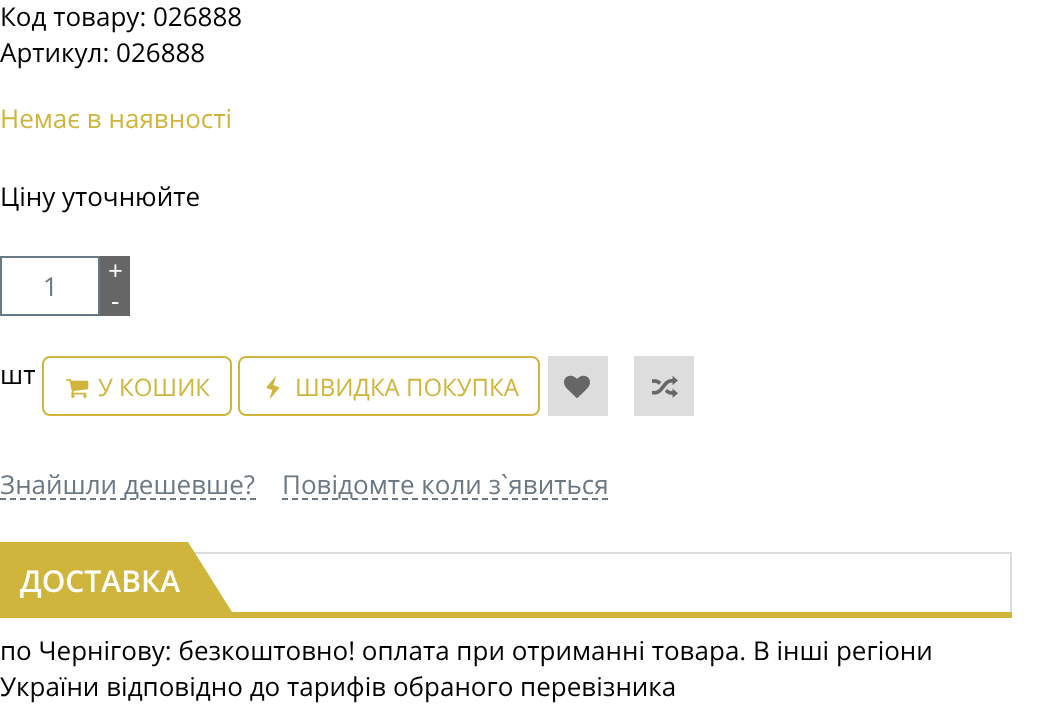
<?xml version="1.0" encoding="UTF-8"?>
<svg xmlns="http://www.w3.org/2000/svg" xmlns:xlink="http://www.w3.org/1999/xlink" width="1052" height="706">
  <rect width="100%" height="100%" fill="#ffffff" />
  <rect x="100" y="256" width="30" height="60" fill="#666666" />
  <rect x="1" y="257" width="98" height="58" fill="none" stroke="#6a7884" stroke-width="2" />
  <rect x="43" y="357" width="188" height="58" rx="7" fill="none" stroke="#cfb53b" stroke-width="2" />
  <image x="66" y="379" width="23" height="19" xlink:href="image1.png" />
  <rect x="239" y="357" width="300" height="58" rx="7" fill="none" stroke="#cfb53b" stroke-width="2" />
  <image x="266" y="376" width="14" height="23" xlink:href="image2.png" />
  <rect x="548" y="356" width="60" height="60" fill="#dddddd" />
  <image x="564" y="375" width="26" height="23" xlink:href="image3.png" />
  <rect x="634" y="356" width="60" height="60" fill="#dddddd" />
  <image x="652" y="376" width="26" height="22" xlink:href="image4.png" />
  <path d="M 0 499 h 256" fill="none" stroke="#6a7884" stroke-width="2" stroke-dasharray="6 4" />
  <path d="M 282 499 h 326" fill="none" stroke="#6a7884" stroke-width="2" stroke-dasharray="6 4" />
  <rect x="194" y="552" width="818" height="2" fill="#dddddd" />
  <rect x="1010" y="552" width="2" height="60" fill="#dddddd" />
  <rect y="542" width="188" height="70" fill="#cfb53b" />
  <path d="M 188 612 v -70 l 44 70 z" fill="#cfb53b" />
  <rect y="612" width="1012" height="6" fill="#cfb53b" />
  <text x="0" y="26" style="font-family: Open Sans; font-size: 26px; fill: #000000">Код товару: 026888</text>
  <text x="0" y="62" style="font-family: Open Sans; font-size: 26px; fill: #000000">Артикул: 026888</text>
  <text x="0" y="128" style="font-family: Open Sans; font-size: 26px; fill: #cfb53b">Немає в наявності</text>
  <text x="0" y="206" style="font-family: Open Sans; font-size: 26px; fill: #000000">Ціну уточнюйте</text>
  <text x="108" y="280" style="font-family: Open Sans; font-size: 26px; fill: #ffffff">+</text>
  <text x="43" y="296" style="font-family: Open Sans; font-size: 26px; fill: #6a7884">1</text>
  <text x="111" y="310" style="font-family: Open Sans; font-size: 26px; fill: #ffffff">-</text>
  <text x="0" y="384" style="font-family: Open Sans; font-size: 26px; fill: #000000">шт</text>
  <text x="98" y="396" style="font-family: Open Sans; font-size: 24px; fill: #cfb53b">У КОШИК</text>
  <text x="295" y="396" style="font-family: Open Sans; font-size: 24px; fill: #cfb53b">ШВИДКА ПОКУПКА</text>
  <text x="0" y="494" style="font-family: Open Sans; font-size: 26px; fill: #6a7884">Знайшли дешевше?</text>
  <text x="282" y="494" style="font-family: Open Sans; font-size: 26px; fill: #6a7884">Повідомте коли з`явиться</text>
  <text x="20" y="592" style="font-family: Open Sans; font-size: 30px; font-weight: 600; fill: #ffffff">ДОСТАВКА</text>
  <text x="0" y="660" style="font-family: Open Sans; font-size: 26px; fill: #000000">по Чернігову: безкоштовно! оплата при отриманні товара. В інші регіони</text>
  <text x="0" y="696" style="font-family: Open Sans; font-size: 26px; fill: #000000">України відповідно до тарифів обраного перевізника</text>
</svg>
